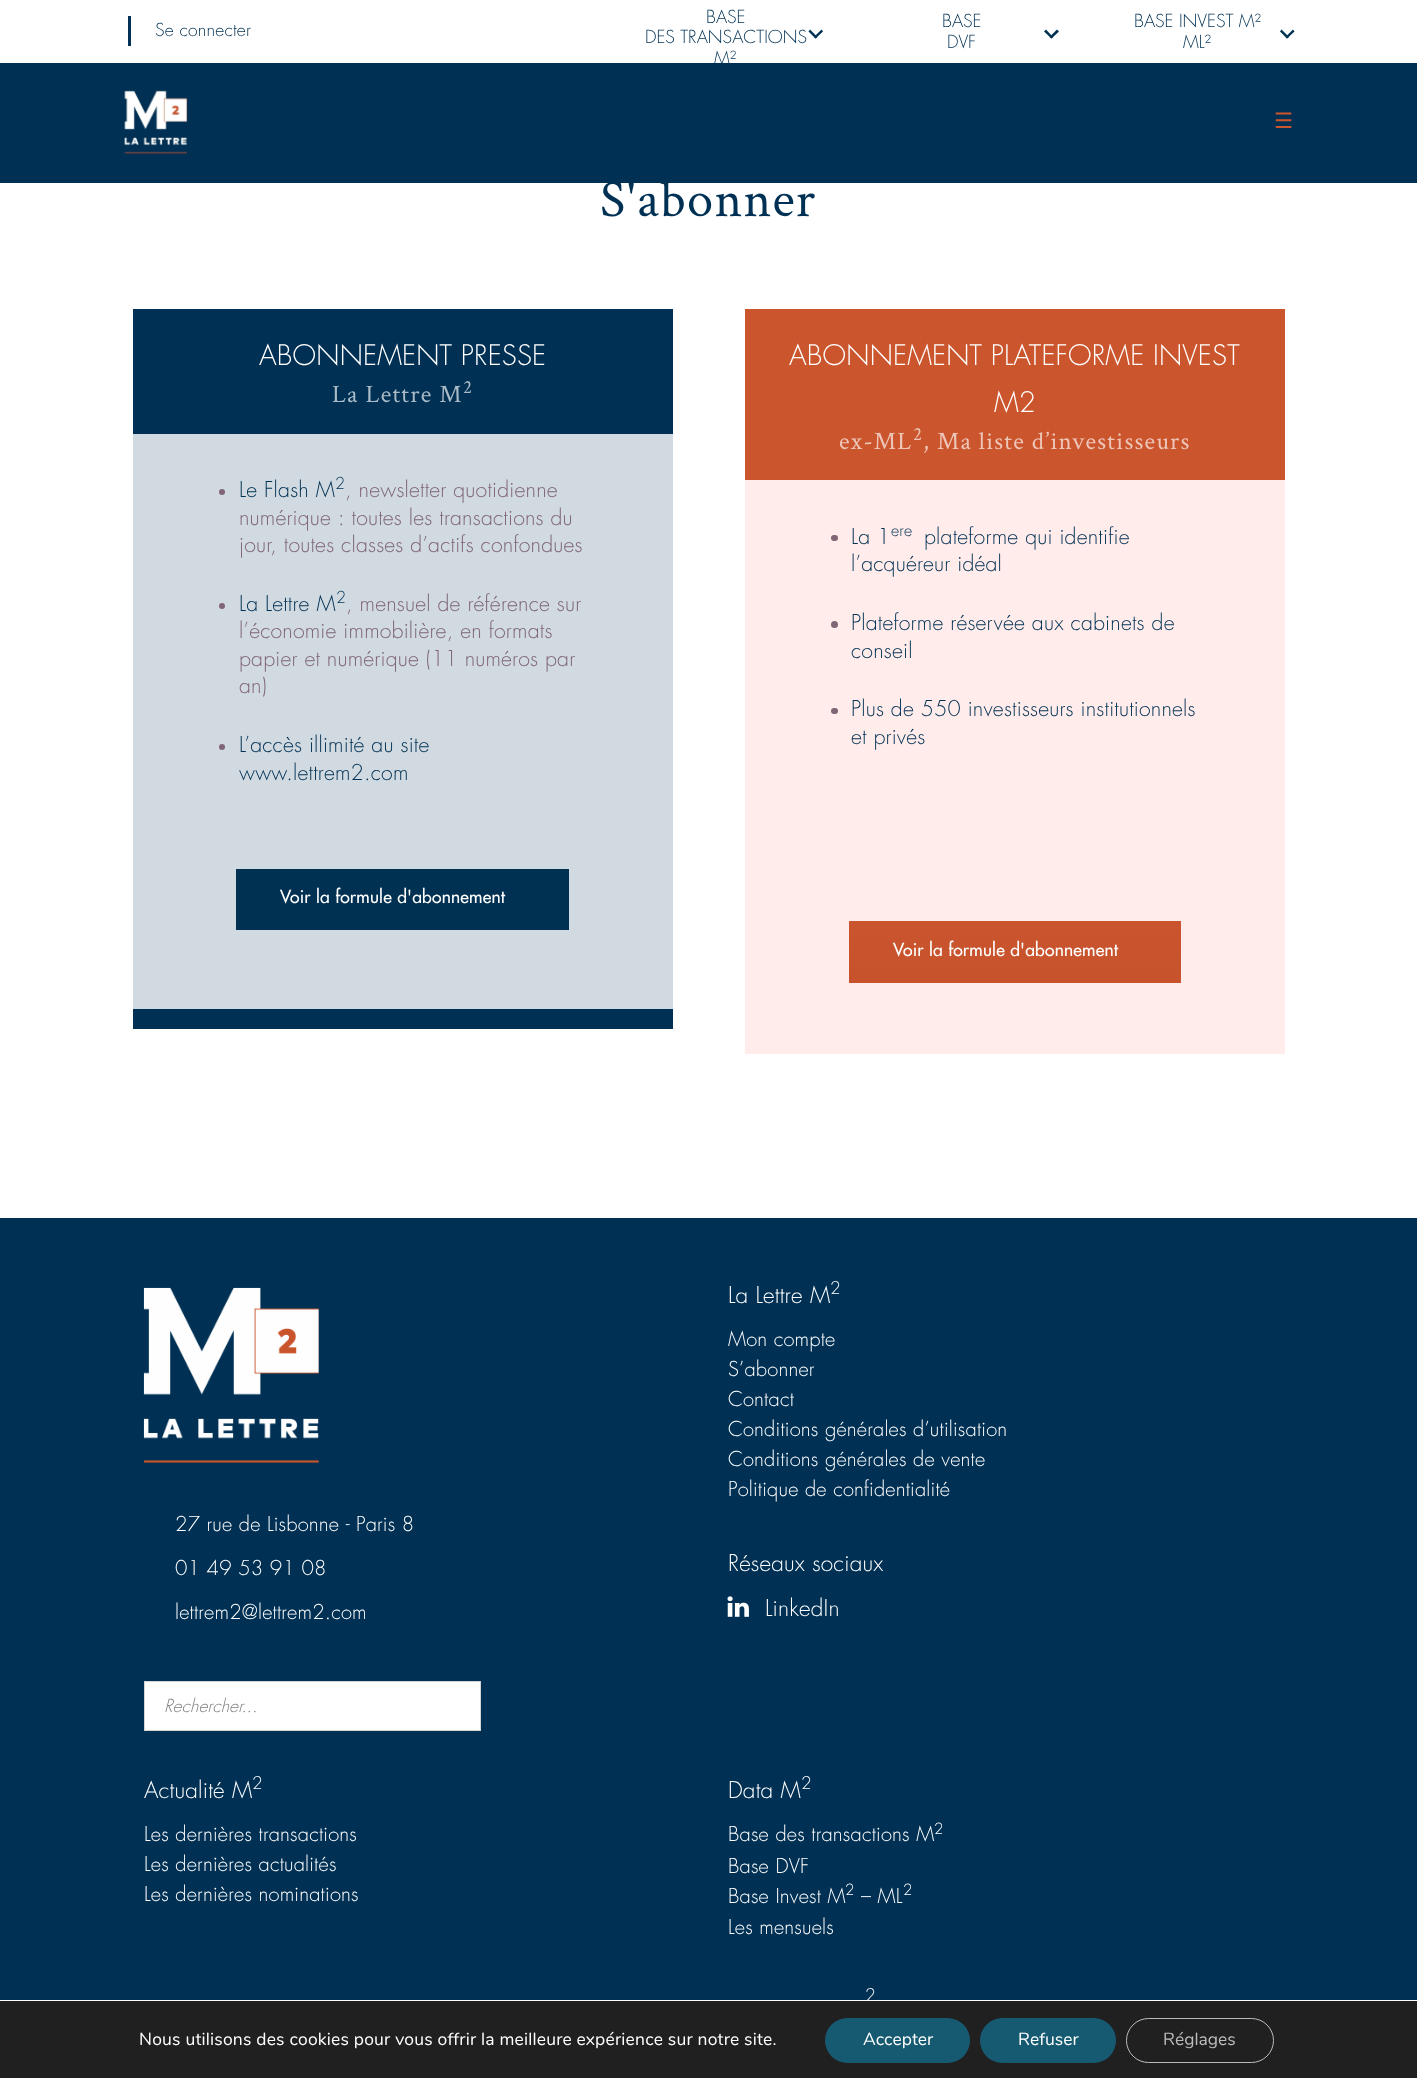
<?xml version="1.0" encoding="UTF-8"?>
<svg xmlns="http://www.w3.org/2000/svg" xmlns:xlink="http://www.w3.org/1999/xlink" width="1417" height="2078">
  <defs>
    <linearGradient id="g1" gradientUnits="userSpaceOnUse" x1="403" y1="869" x2="403" y2="930"><stop offset="0" stop-color="#003153" /><stop offset="1" stop-color="#003052" /></linearGradient>
    <linearGradient id="g2" gradientUnits="userSpaceOnUse" x1="1015" y1="921" x2="1015" y2="983"><stop offset="0" stop-color="#c9542d" /><stop offset="1" stop-color="#c7532c" /></linearGradient>
  </defs>
  <rect width="100%" height="100%" fill="#ffffff" />
  <rect x="128" y="16" width="3" height="30" fill="#003154" />
  <path d="M 821.5 29.5 l 1.5 2 l -7.5 7 l -1.5 -1.5 z" fill="#003154" />
  <path d="M 810 29.5 l 7.5 7.5 l -2 1.5 l -7 -7 z" fill="#003154" />
  <path d="M 1057 29.5 l 2 2 l -7.5 7 l -2 -1.5 z" fill="#003154" />
  <path d="M 1046 29.5 l 7 7.5 l -1.5 1.5 l -7.5 -7 z" fill="#003154" />
  <path d="M 1293 29.5 l 1.5 2 l -7.5 7 l -1.5 -1.5 z" fill="#003154" />
  <path d="M 1281.5 29.5 l 7.5 7.5 l -2 1.5 l -7 -7 z" fill="#003154" />
  <rect y="63" width="1417" height="120" fill="#003154" />
  <image x="124" y="90" width="64" height="65" xlink:href="image1.png" />
  <rect x="133" y="309" width="540" height="720" fill="#003154" />
  <rect x="133" y="434" width="540" height="575" fill="#d1dae0" />
  <circle cx="222" cy="492" r="3" fill="#7f6575" />
  <circle cx="222" cy="606" r="3" fill="#7f6575" />
  <circle cx="222" cy="747" r="3" fill="#7f6575" />
  <rect x="236" y="869" width="333" height="61" fill="url(#g1)" />
  <rect x="745" y="309" width="540" height="171" fill="#cb552d" />
  <rect x="745" y="480" width="540" height="574" fill="#ffeceb" />
  <rect x="831" y="535" width="7" height="6" rx="3" fill="#7f6575" />
  <circle cx="834.5" cy="624.5" r="3.5" fill="#7f6575" />
  <rect x="831" y="708" width="7" height="6" rx="3" fill="#7f6575" />
  <rect x="849" y="921" width="332" height="62" fill="url(#g2)" />
  <rect y="1218" width="1417" height="782" fill="#003154" />
  <image x="143" y="1287" width="176" height="176" xlink:href="image2.png" />
  <rect x="144.5" y="1681.5" width="336" height="49" fill="#ffffff" stroke="#d4d4d4" />
  <image x="727" y="1596" width="22" height="21" xlink:href="image3.png" />
  <rect y="2001" width="1417" height="77" fill="#202020" />
  <rect x="825" y="2018" width="145" height="45" rx="22.5" fill="#165a72" />
  <rect x="980" y="2018" width="136" height="45" rx="22.5" fill="#165a72" />
  <rect x="1126.5" y="2018.5" width="147" height="44" rx="22" fill="none" stroke="#bcbcbc" />
  <text x="155" y="36" style="font-family: Futura; font-size: 17.5px; font-weight: 300; letter-spacing: 0.2px; fill: #003154">Se connecter</text>
  <text x="706" y="23" style="font-family: Futura; font-size: 17.5px; font-weight: 300; fill: #003154">BASE</text>
  <text x="645" y="43" style="font-family: Futura; font-size: 17.5px; font-weight: 300; fill: #003154">DES TRANSACTIONS</text>
  <text x="714" y="64" style="font-family: Futura; font-size: 17.5px; font-weight: 300; fill: #003154">M²</text>
  <text x="942" y="27" style="font-family: Futura; font-size: 17.5px; font-weight: 300; fill: #003154">BASE</text>
  <text x="947" y="48" style="font-family: Futura; font-size: 17.5px; font-weight: 300; fill: #003154">DVF</text>
  <text x="1134" y="27" style="font-family: Futura; font-size: 17.5px; font-weight: 300; fill: #003154">BASE INVEST M²</text>
  <text x="1183" y="48" style="font-family: Futura; font-size: 17.5px; font-weight: 300; fill: #003154">ML²</text>
  <text x="1274" y="128" style="font-family: DejaVu Sans; font-size: 21.25px; fill: #cb552d">☰</text>
  <text x="600" y="216" style="font-family: Crimson Text; font-size: 52.5px; letter-spacing: 1.25px; fill: #003154">S'abonner</text>
  <text x="259" y="365" style="font-family: Futura; font-size: 27.5px; font-weight: 300; letter-spacing: 0.2px; fill: #ffffff">ABONNEMENT PRESSE</text>
  <text x="332" y="402" style="font-family: Crimson Text; font-size: 25px; letter-spacing: 1.25px; fill: #aabac6">La Lettre M</text>
  <text x="463" y="393" style="font-family: Crimson Text; font-size: 19px; letter-spacing: 1.25px; fill: #aabac6">2</text>
  <text x="239" y="497" style="font-family: Futura; font-size: 21.25px; font-weight: 300; letter-spacing: 0.2px; fill: #003154">Le Flash M</text>
  <text x="335" y="489" style="font-family: Futura; font-size: 16px; font-weight: 300; letter-spacing: 0.2px; fill: #003154">2</text>
  <text x="345" y="497" style="font-family: Futura; font-size: 21.25px; font-weight: 300; letter-spacing: 0.2px; fill: #7f6575">, newsletter quotidienne</text>
  <text x="239" y="525" style="font-family: Futura; font-size: 21.25px; font-weight: 300; letter-spacing: 0.2px; fill: #7f6575">numérique : toutes les transactions du</text>
  <text x="239" y="552" style="font-family: Futura; font-size: 21.25px; font-weight: 300; letter-spacing: 0.2px; fill: #7f6575">jour, toutes classes d’actifs confondues</text>
  <text x="239" y="611" style="font-family: Futura; font-size: 21.25px; font-weight: 300; letter-spacing: 0.2px; fill: #003154">La Lettre M</text>
  <text x="336" y="603" style="font-family: Futura; font-size: 16px; font-weight: 300; letter-spacing: 0.2px; fill: #003154">2</text>
  <text x="346" y="611" style="font-family: Futura; font-size: 21.25px; font-weight: 300; letter-spacing: 0.2px; fill: #7f6575">, mensuel de référence sur</text>
  <text x="239" y="638" style="font-family: Futura; font-size: 21.25px; font-weight: 300; letter-spacing: 0.2px; fill: #7f6575">l’économie immobilière, en formats</text>
  <text x="239" y="666" style="font-family: Futura; font-size: 21.25px; font-weight: 300; letter-spacing: 0.2px; fill: #7f6575">papier et numérique (11 numéros par</text>
  <text x="239" y="693" style="font-family: Futura; font-size: 21.25px; font-weight: 300; letter-spacing: 0.2px; fill: #7f6575">an)</text>
  <text x="239" y="752" style="font-family: Futura; font-size: 21.25px; font-weight: 300; letter-spacing: 0.2px; fill: #003154">L’accès illimité au site</text>
  <text x="239" y="780" style="font-family: Futura; font-size: 21.25px; font-weight: 300; letter-spacing: 0.2px; fill: #003154">www.lettrem2.com</text>
  <text x="280" y="903" style="font-family: Futura; font-size: 17.5px; font-weight: 500; letter-spacing: 0.2px; fill: #ffffff">Voir la formule d'abonnement</text>
  <text x="789" y="365" style="font-family: Futura; font-size: 27.5px; font-weight: 300; letter-spacing: 0.2px; fill: #ffffff">ABONNEMENT PLATEFORME INVEST</text>
  <text x="994" y="412" style="font-family: Futura; font-size: 27.5px; font-weight: 300; letter-spacing: 0.2px; fill: #ffffff">M2</text>
  <text x="839" y="449" style="font-family: Crimson Text; font-size: 25px; letter-spacing: 1.25px; fill: #eec6b9">ex-ML</text>
  <text x="913" y="440" style="font-family: Crimson Text; font-size: 19px; letter-spacing: 1.25px; fill: #eec6b9">2</text>
  <text x="923" y="449" style="font-family: Crimson Text; font-size: 25px; letter-spacing: 1.25px; fill: #eec6b9">, Ma liste d’investisseurs</text>
  <text x="851" y="544" style="font-family: Futura; font-size: 21.25px; font-weight: 300; letter-spacing: 0.2px; fill: #003154">La 1</text>
  <text x="891" y="536" style="font-family: Futura; font-size: 16px; font-weight: 300; letter-spacing: 0.2px; fill: #003154">ere</text>
  <text x="924" y="544" style="font-family: Futura; font-size: 21.25px; font-weight: 300; letter-spacing: 0.2px; fill: #003154">plateforme qui identifie</text>
  <text x="851" y="571" style="font-family: Futura; font-size: 21.25px; font-weight: 300; letter-spacing: 0.2px; fill: #003154">l’acquéreur idéal</text>
  <text x="851" y="630" style="font-family: Futura; font-size: 21.25px; font-weight: 300; letter-spacing: 0.2px; fill: #003154">Plateforme réservée aux cabinets de</text>
  <text x="851" y="658" style="font-family: Futura; font-size: 21.25px; font-weight: 300; letter-spacing: 0.2px; fill: #003154">conseil</text>
  <text x="851" y="716" style="font-family: Futura; font-size: 21.25px; font-weight: 300; letter-spacing: 0.2px; fill: #003154">Plus de 550 investisseurs institutionnels</text>
  <text x="851" y="744" style="font-family: Futura; font-size: 21.25px; font-weight: 300; letter-spacing: 0.2px; fill: #003154">et privés</text>
  <text x="893" y="956" style="font-family: Futura; font-size: 17.5px; font-weight: 500; letter-spacing: 0.2px; fill: #ffffff">Voir la formule d'abonnement</text>
  <text x="175" y="1531" style="font-family: Futura; font-size: 20px; font-weight: 300; letter-spacing: 0.2px; fill: #ffffff">27 rue de Lisbonne - Paris 8</text>
  <text x="175" y="1575" style="font-family: Futura; font-size: 20px; font-weight: 300; letter-spacing: 0.2px; fill: #ffffff">01 49 53 91 08</text>
  <text x="175" y="1619" style="font-family: Futura; font-size: 20px; font-weight: 300; letter-spacing: 0.2px; fill: #ffffff">lettrem2@lettrem2.com</text>
  <text x="164" y="1712" style="font-family: Futura; font-size: 17.5px; font-weight: 300; font-style: italic; fill: #808080">Rechercher...</text>
  <text x="728" y="1303" style="font-family: Futura; font-size: 22.5px; font-weight: 300; letter-spacing: 0.2px; fill: #ffffff">La Lettre M</text>
  <text x="830" y="1294" style="font-family: Futura; font-size: 17px; font-weight: 300; letter-spacing: 0.2px; fill: #ffffff">2</text>
  <text x="728" y="1346" style="font-family: Futura; font-size: 20px; font-weight: 300; letter-spacing: 0.2px; fill: #ffffff">Mon compte</text>
  <text x="728" y="1376" style="font-family: Futura; font-size: 20px; font-weight: 300; letter-spacing: 0.2px; fill: #ffffff">S’abonner</text>
  <text x="728" y="1406" style="font-family: Futura; font-size: 20px; font-weight: 300; letter-spacing: 0.2px; fill: #ffffff">Contact</text>
  <text x="728" y="1436" style="font-family: Futura; font-size: 20px; font-weight: 300; letter-spacing: 0.2px; fill: #ffffff">Conditions générales d’utilisation</text>
  <text x="728" y="1466" style="font-family: Futura; font-size: 20px; font-weight: 300; letter-spacing: 0.2px; fill: #ffffff">Conditions générales de vente</text>
  <text x="728" y="1496" style="font-family: Futura; font-size: 20px; font-weight: 300; letter-spacing: 0.2px; fill: #ffffff">Politique de confidentialité</text>
  <text x="728" y="1571" style="font-family: Futura; font-size: 22.5px; font-weight: 300; letter-spacing: 0.2px; fill: #ffffff">Réseaux sociaux</text>
  <text x="765" y="1616" style="font-family: Futura; font-size: 22.5px; font-weight: 300; letter-spacing: 0.2px; fill: #ffffff">LinkedIn</text>
  <text x="144" y="1798" style="font-family: Futura; font-size: 22.5px; font-weight: 300; letter-spacing: 0.2px; fill: #ffffff">Actualité M</text>
  <text x="252" y="1789" style="font-family: Futura; font-size: 17px; font-weight: 300; letter-spacing: 0.2px; fill: #ffffff">2</text>
  <text x="144" y="1841" style="font-family: Futura; font-size: 20px; font-weight: 300; letter-spacing: 0.2px; fill: #ffffff">Les dernières transactions</text>
  <text x="144" y="1871" style="font-family: Futura; font-size: 20px; font-weight: 300; letter-spacing: 0.2px; fill: #ffffff">Les dernières actualités</text>
  <text x="144" y="1901" style="font-family: Futura; font-size: 20px; font-weight: 300; letter-spacing: 0.2px; fill: #ffffff">Les dernières nominations</text>
  <text x="728" y="1798" style="font-family: Futura; font-size: 22.5px; font-weight: 300; letter-spacing: 0.2px; fill: #ffffff">Data M</text>
  <text x="801" y="1789" style="font-family: Futura; font-size: 17px; font-weight: 300; letter-spacing: 0.2px; fill: #ffffff">2</text>
  <text x="728" y="1841" style="font-family: Futura; font-size: 20px; font-weight: 300; letter-spacing: 0.2px; fill: #ffffff">Base des transactions M</text>
  <text x="934" y="1834" style="font-family: Futura; font-size: 15px; font-weight: 300; letter-spacing: 0.2px; fill: #ffffff">2</text>
  <text x="728" y="1873" style="font-family: Futura; font-size: 20px; font-weight: 300; letter-spacing: 0.2px; fill: #ffffff">Base DVF</text>
  <text x="728" y="1903" style="font-family: Futura; font-size: 20px; font-weight: 300; letter-spacing: 0.2px; fill: #ffffff">Base Invest M</text>
  <text x="845" y="1895" style="font-family: Futura; font-size: 15px; font-weight: 300; letter-spacing: 0.2px; fill: #ffffff">2</text>
  <text x="861" y="1903" style="font-family: Futura; font-size: 20px; font-weight: 300; letter-spacing: 0.2px; fill: #ffffff">– ML</text>
  <text x="903" y="1895" style="font-family: Futura; font-size: 15px; font-weight: 300; letter-spacing: 0.2px; fill: #ffffff">2</text>
  <text x="728" y="1934" style="font-family: Futura; font-size: 20px; font-weight: 300; letter-spacing: 0.2px; fill: #ffffff">Les mensuels</text>
  <text x="865" y="2001" style="font-family: Futura; font-size: 17px; font-weight: 300; letter-spacing: 0.2px; fill: #ffffff">2</text>
  <text x="139" y="2045" style="font-family: Nunito; font-size: 17.5px; letter-spacing: 0.2px; fill: #ffffff">Nous utilisons des cookies pour vous offrir la meilleure expérience sur notre site.</text>
  <text x="863" y="2045" style="font-family: Nunito; font-size: 17.5px; fill: #ffffff">Accepter</text>
  <text x="1018" y="2045" style="font-family: Nunito; font-size: 17.5px; fill: #ffffff">Refuser</text>
  <text x="1163" y="2045" style="font-family: Nunito; font-size: 17.5px; fill: #bcbcbc">Réglages</text>
</svg>
